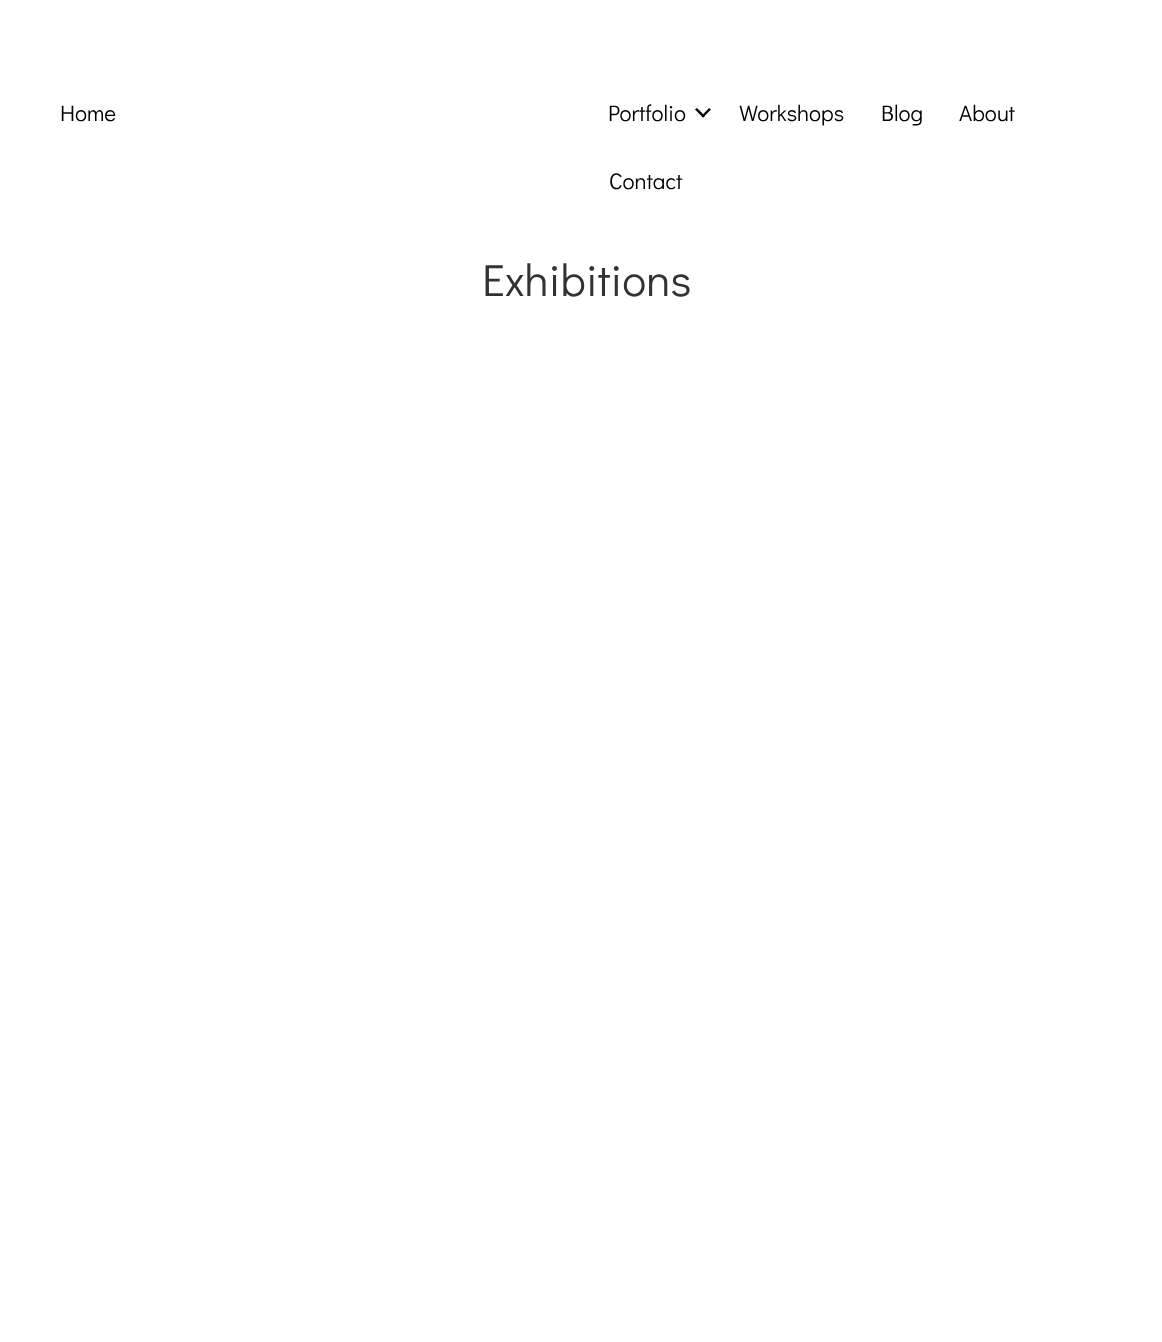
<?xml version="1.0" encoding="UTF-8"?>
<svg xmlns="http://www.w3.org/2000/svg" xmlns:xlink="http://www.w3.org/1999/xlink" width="1162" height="1342">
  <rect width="100%" height="100%" fill="#ffffff" />
  <path d="M 709 108 l 2 1.5 l -8 8 l -1.5 -1.5 z" fill="#000000" />
  <path d="M 697 108 l 8 8 l -2 1.5 l -8 -8 z" fill="#000000" />
  <text x="60" y="121" style="font-family: Didact Gothic; font-size: 22.5px; fill: #000000">Home</text>
  <text x="608" y="121" style="font-family: Didact Gothic; font-size: 22.5px; fill: #000000">Portfolio</text>
  <text x="739" y="121" style="font-family: Didact Gothic; font-size: 22.5px; fill: #000000">Workshops</text>
  <text x="881" y="121" style="font-family: Didact Gothic; font-size: 22.5px; fill: #000000">Blog</text>
  <text x="959" y="121" style="font-family: Didact Gothic; font-size: 22.5px; fill: #000000">About</text>
  <text x="609" y="189" style="font-family: Didact Gothic; font-size: 22.5px; fill: #000000">Contact</text>
  <text x="482" y="296" style="font-family: Didact Gothic; font-size: 45px; fill: #333333">Exhibitions</text>
</svg>
